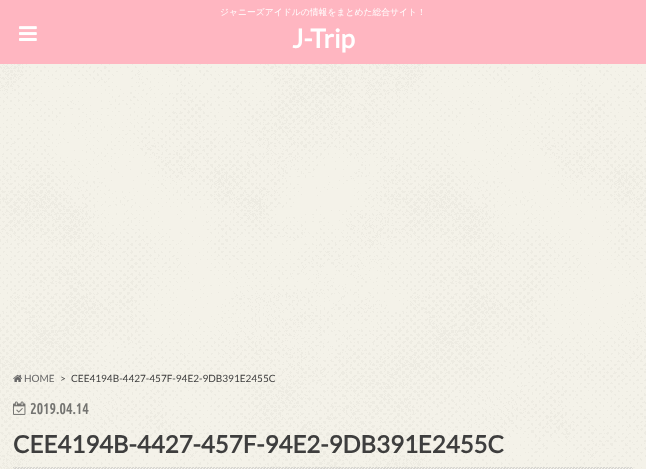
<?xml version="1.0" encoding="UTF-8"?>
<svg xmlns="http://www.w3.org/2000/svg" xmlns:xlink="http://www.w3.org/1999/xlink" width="646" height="469">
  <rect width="100%" height="100%" fill="#ffffff" />
  <image x="0" y="64" width="646" height="405" xlink:href="image1.png" />
  <rect width="646" height="64" fill="#ffb6c1" />
  <image x="19" y="26" width="18" height="15" xlink:href="image2.png" />
  <image x="13" y="374" width="10" height="8" xlink:href="image3.png" />
  <image x="13" y="401" width="13" height="14" xlink:href="image4.png" />
  <image x="13" y="467" width="620" height="2" xlink:href="image5.png" />
  <text x="220" y="15" style="font-family: WenQuanYi Zen Hei; font-size: 8.8px; font-weight: 500; fill: #ffffff">ジャニーズアイドルの情報をまとめた総合サイト！</text>
  <text x="292" y="48" style="font-family: Lato; font-size: 26px; font-weight: bold; fill: #ffffff">J-Trip</text>
  <text x="24" y="382" style="font-family: Lato; font-size: 10px; fill: #666666">HOME</text>
  <text x="60" y="382" style="font-family: Lato; font-size: 10px; fill: #3e3e3e">&gt;</text>
  <text x="71" y="382" style="font-family: Lato; font-size: 10px; fill: #3e3e3e">CEE4194B-4427-457F-94E2-9DB391E2455C</text>
  <text x="30" y="414" style="font-family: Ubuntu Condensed; font-size: 15px; font-weight: bold; fill: #747471">2019.04.14</text>
  <text x="13" y="453" style="font-family: Lato; font-size: 24px; font-weight: bold; fill: #3e3e3e">CEE4194B-4427-457F-94E2-9DB391E2455C</text>
</svg>
